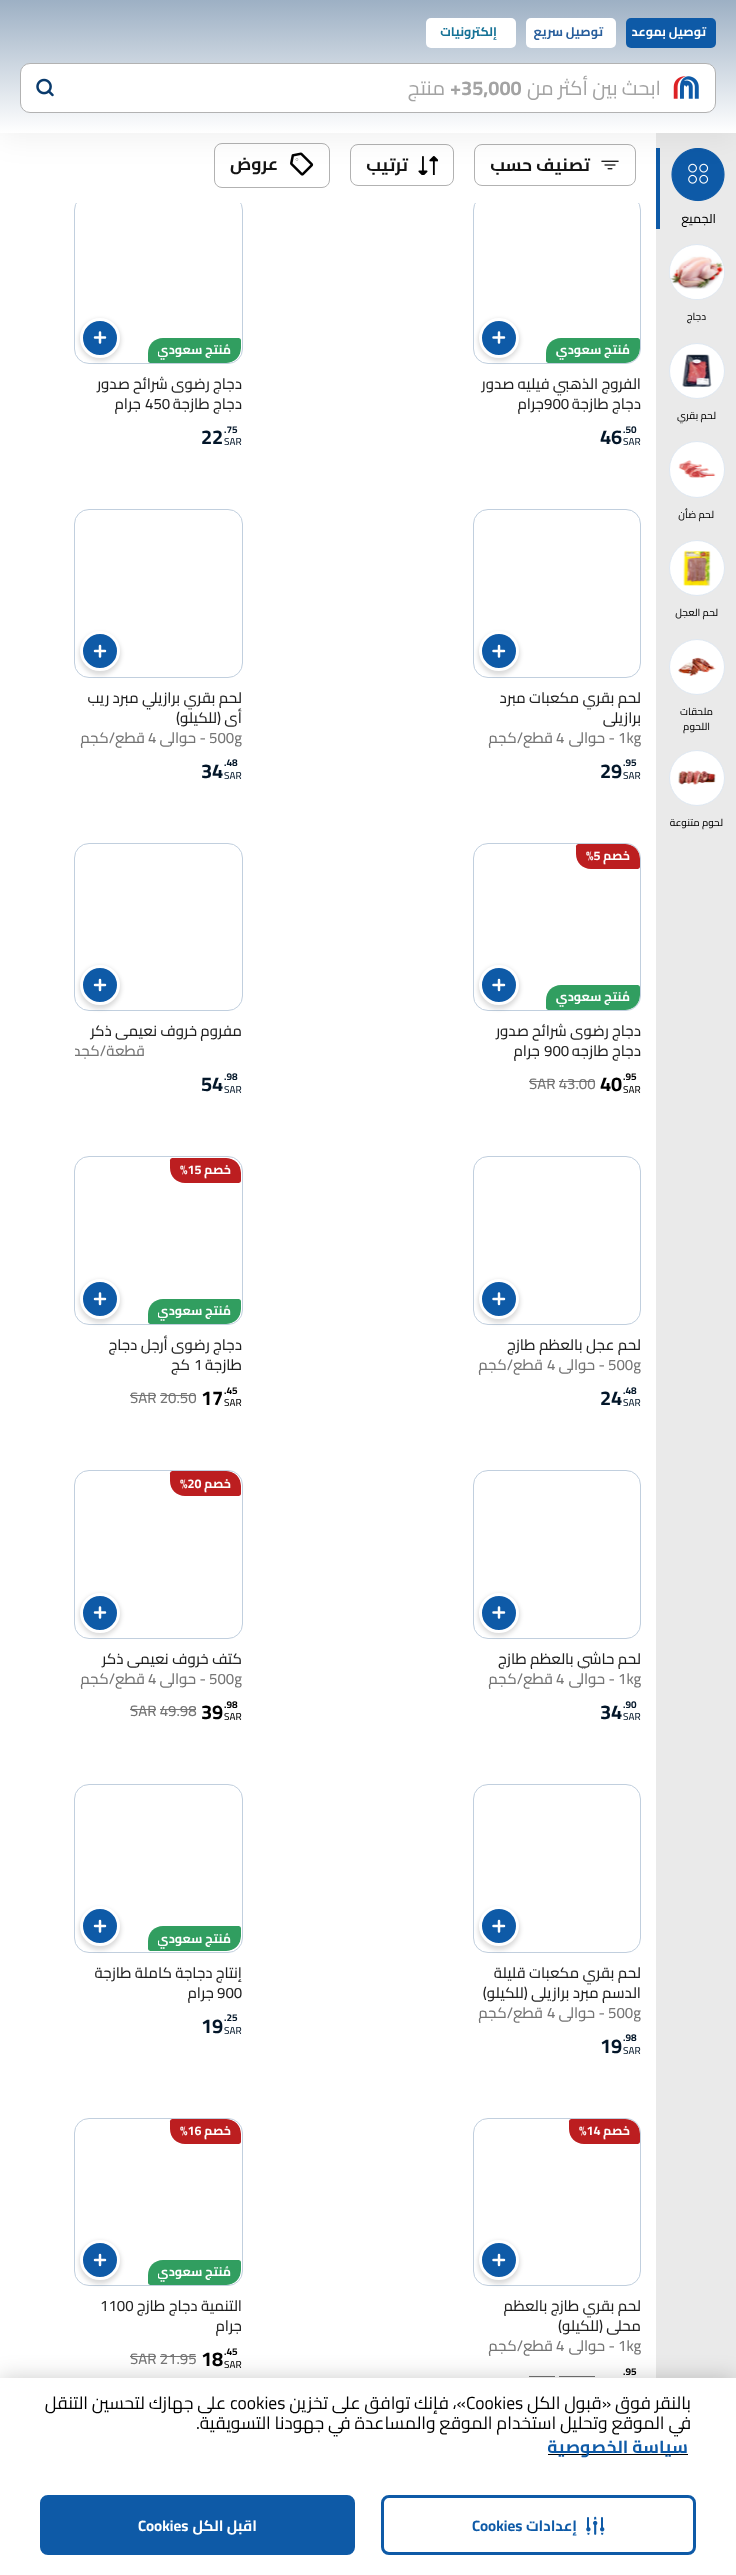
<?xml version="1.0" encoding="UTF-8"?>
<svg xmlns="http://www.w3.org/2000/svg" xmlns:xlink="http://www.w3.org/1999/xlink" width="736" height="2575">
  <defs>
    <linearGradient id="g1" gradientUnits="userSpaceOnUse" x1="368" y1="0" x2="368" y2="133"><stop offset="0" stop-color="#9db0c4" /><stop offset="1" stop-color="#ffffff" /></linearGradient>
    <clipPath id="clip1"><rect x="474" y="196" width="166" height="167" rx="14" /></clipPath>
    <clipPath id="clip2"><rect x="75" y="196" width="166" height="167" rx="14" /></clipPath>
    <clipPath id="clip3"><rect x="474" y="844" width="166" height="166" rx="14" /></clipPath>
    <clipPath id="clip4"><rect x="75" y="1158" width="166" height="166" rx="14" /></clipPath>
    <clipPath id="clip5"><rect x="75" y="1471" width="166" height="167" rx="14" /></clipPath>
    <clipPath id="clip6"><rect x="75" y="1785" width="166" height="166" rx="14" /></clipPath>
    <clipPath id="clip7"><rect x="474" y="2119" width="166" height="166" rx="14" /></clipPath>
    <clipPath id="clip8"><rect x="75" y="2119" width="166" height="166" rx="14" /></clipPath>
    <clipPath id="clip9"><rect x="158" y="340" width="73" height="20" /></clipPath>
    <clipPath id="clip10"><rect x="474" y="688" width="167" height="40" /></clipPath>
    <clipPath id="clip11"><rect x="474" y="728" width="167" height="20" /></clipPath>
    <clipPath id="clip12"><rect x="75" y="688" width="168" height="40" /></clipPath>
    <clipPath id="clip13"><rect x="75" y="728" width="168" height="20" /></clipPath>
    <clipPath id="clip14"><rect x="75" y="1021" width="168" height="20" /></clipPath>
    <clipPath id="clip15"><rect x="75" y="1041" width="168" height="20" /></clipPath>
    <clipPath id="clip16"><rect x="474" y="1355" width="167" height="20" /></clipPath>
    <clipPath id="clip17"><rect x="158" y="1301" width="73" height="20" /></clipPath>
    <clipPath id="clip18"><rect x="474" y="1649" width="167" height="20" /></clipPath>
    <clipPath id="clip19"><rect x="474" y="1669" width="167" height="20" /></clipPath>
    <clipPath id="clip20"><rect x="75" y="1649" width="168" height="20" /></clipPath>
    <clipPath id="clip21"><rect x="75" y="1669" width="168" height="20" /></clipPath>
    <clipPath id="clip22"><rect x="474" y="1963" width="167" height="40" /></clipPath>
    <clipPath id="clip23"><rect x="474" y="2003" width="167" height="20" /></clipPath>
    <clipPath id="clip24"><rect x="158" y="1929" width="73" height="20" /></clipPath>
    <clipPath id="clip25"><rect x="474" y="2296" width="167" height="40" /></clipPath>
    <clipPath id="clip26"><rect x="474" y="2336" width="167" height="20" /></clipPath>
    <clipPath id="clip27"><rect x="158" y="2263" width="73" height="20" /></clipPath>
  </defs>
  <rect width="100%" height="100%" fill="#ffffff" />
  <rect x="656" y="133" width="80" height="2245" fill="#eaeaea" />
  <rect x="656" y="148" width="4" height="81" fill="#0e5aa7" />
  <image x="671" y="148" width="54" height="54" xlink:href="image3.png" />
  <rect x="474.5" y="144.5" width="161" height="41" rx="7.5" fill="none" stroke="#b2b2b2" />
  <image x="601" y="160" width="18" height="10" xlink:href="image10.png" />
  <rect x="350.5" y="144.5" width="103" height="41" rx="7.5" fill="none" stroke="#b2b2b2" />
  <image x="418" y="156" width="20" height="19" xlink:href="image11.png" />
  <rect x="214.5" y="143.5" width="115" height="44" rx="7.5" fill="none" stroke="#b2b2b2" />
  <image x="290" y="152" width="24" height="24" xlink:href="image12.png" />
  <rect y="5" width="736" height="133" fill="#000000" fill-opacity="0.06" filter="blur(15px)" />
  <rect width="736" height="133" fill="url(#g1)" />
  <rect x="626" y="18" width="90" height="30" rx="5" fill="#0e5aa7" />
  <rect x="526" y="18" width="90" height="30" rx="5" fill="#ffffff" />
  <rect x="426" y="18" width="90" height="30" rx="5" fill="#ffffff" />
  <rect x="20.5" y="63.5" width="695" height="49" rx="9.5" fill="#ffffff" stroke="#b2b2b2" />
  <image x="673" y="76" width="26" height="23" xlink:href="image1.png" />
  <image x="36" y="78" width="18" height="19" xlink:href="image2.png" />
  <circle cx="697" cy="272" r="27.5" fill="#ffffff" stroke="#dfe8f2" />
  <image x="669" y="247" width="55" height="52" xlink:href="image4.png" />
  <circle cx="697" cy="371" r="27.5" fill="#ffffff" stroke="#dfe8f2" />
  <image x="682" y="354" width="30" height="33" xlink:href="image5.png" />
  <rect x="669.5" y="441.5" width="55" height="56" rx="27.5" fill="#ffffff" stroke="#dfe8f2" />
  <image x="678" y="460" width="38" height="18" xlink:href="image6.png" />
  <circle cx="697" cy="568" r="27.5" fill="#ffffff" stroke="#dfe8f2" />
  <image x="683" y="550" width="28" height="37" xlink:href="image7.png" />
  <circle cx="697" cy="667" r="27.5" fill="#ffffff" stroke="#dfe8f2" />
  <image x="678" y="657" width="38" height="19" xlink:href="image8.png" />
  <circle cx="697" cy="778" r="27.5" fill="#ffffff" stroke="#dfe8f2" />
  <image x="678" y="770" width="38" height="15" xlink:href="image9.png" />
  <rect x="473.5" y="195.5" width="167" height="168" rx="14.5" fill="none" stroke="#c1cfde" />
  <rect x="74.5" y="195.5" width="168" height="168" rx="14.5" fill="none" stroke="#c1cfde" />
  <rect x="76" y="195" width="563" height="8" fill="#ffffff" />
  <g clip-path="url(#clip1)">
    <path d="M 561 338 h 76.5 c 1.5 0 2.5 1 2.5 2.5 v 7.5 c 0 8.5 -6.5 15 -15 15 h -76.5 c -1.5 0 -2.5 -1 -2.5 -2.5 v -7.5 c 0 -8.5 6.5 -15 15 -15 z" fill="#319e60" />
  </g>
  <rect x="478" y="319" width="42" height="42" rx="21" fill="#000000" fill-opacity="0.14" filter="blur(2px)" />
  <circle cx="499" cy="338" r="18.5" fill="#0e5aa7" stroke="#ffffff" stroke-width="3" />
  <path d="M 493.5 337.5 h 10.5 m -5 -5 v 10" fill="none" stroke="#ffffff" stroke-width="2.5" stroke-linecap="round" stroke-linejoin="round" />
  <g clip-path="url(#clip2)">
    <path d="M 163 338 h 75.5 c 1.5 0 2.5 1 2.5 2.5 v 7.5 c 0 8.5 -6.5 15 -15 15 h -75.5 c -1.5 0 -2.5 -1 -2.5 -2.5 v -7.5 c 0 -8.5 6.5 -15 15 -15 z" fill="#319e60" />
  </g>
  <rect x="79" y="319" width="42" height="42" rx="21" fill="#000000" fill-opacity="0.14" filter="blur(2px)" />
  <circle cx="100" cy="338" r="18.5" fill="#0e5aa7" stroke="#ffffff" stroke-width="3" />
  <path d="M 95 337.5 h 10 m -5 -5 v 10" fill="none" stroke="#ffffff" stroke-width="2.5" stroke-linecap="round" stroke-linejoin="round" />
  <rect x="473.5" y="509.5" width="167" height="168" rx="14.5" fill="none" stroke="#c1cfde" />
  <rect x="478" y="633" width="42" height="42" rx="21" fill="#000000" fill-opacity="0.14" filter="blur(2px)" />
  <circle cx="499" cy="651" r="18.5" fill="#0e5aa7" stroke="#ffffff" stroke-width="3" />
  <path d="M 493.5 651 h 10.5 m -5 -5 v 10.5" fill="none" stroke="#ffffff" stroke-width="2.5" stroke-linecap="round" stroke-linejoin="round" />
  <rect x="74.5" y="509.5" width="168" height="168" rx="14.5" fill="none" stroke="#c1cfde" />
  <rect x="79" y="633" width="42" height="42" rx="21" fill="#000000" fill-opacity="0.14" filter="blur(2px)" />
  <circle cx="100" cy="651" r="18.5" fill="#0e5aa7" stroke="#ffffff" stroke-width="3" />
  <path d="M 95 651 h 10 m -5 -5 v 10.5" fill="none" stroke="#ffffff" stroke-width="2.5" stroke-linecap="round" stroke-linejoin="round" />
  <rect x="473.5" y="843.5" width="167" height="167" rx="14.5" fill="none" stroke="#c1cfde" />
  <g clip-path="url(#clip3)">
    <path d="M 578.5 844 h 46.5 c 8.5 0 15 6.5 15 15 v 7.5 c 0 1.5 -1 2.5 -2.5 2.5 h -46.5 c -8.5 0 -15 -6.5 -15 -15 v -7.5 c 0 -1.5 1 -2.5 2.5 -2.5 z" fill="#bc1e20" />
    <path d="M 561 985 h 76.5 c 1.5 0 2.5 1 2.5 2.5 v 7.5 c 0 8.5 -6.5 15 -15 15 h -76.5 c -1.5 0 -2.5 -1 -2.5 -2.5 v -7.5 c 0 -8.5 6.5 -15 15 -15 z" fill="#319e60" />
  </g>
  <rect x="478" y="966" width="42" height="43" rx="21" fill="#000000" fill-opacity="0.14" filter="blur(2px)" />
  <circle cx="499" cy="985" r="18.5" fill="#0e5aa7" stroke="#ffffff" stroke-width="3" />
  <path d="M 493.5 985 h 10.5 m -5 -5 v 10" fill="none" stroke="#ffffff" stroke-width="2.5" stroke-linecap="round" stroke-linejoin="round" />
  <rect x="529" y="1081" width="26" height="1" fill="#747474" />
  <rect x="559" y="1081" width="36" height="1" fill="#747474" />
  <rect x="74.5" y="843.5" width="168" height="167" rx="14.5" fill="none" stroke="#c1cfde" />
  <rect x="79" y="966" width="42" height="43" rx="21" fill="#000000" fill-opacity="0.14" filter="blur(2px)" />
  <circle cx="100" cy="985" r="18.5" fill="#0e5aa7" stroke="#ffffff" stroke-width="3" />
  <path d="M 95 985 h 10 m -5 -5 v 10" fill="none" stroke="#ffffff" stroke-width="2.5" stroke-linecap="round" stroke-linejoin="round" />
  <rect x="473.5" y="1156.5" width="167" height="168" rx="14.5" fill="none" stroke="#c1cfde" />
  <rect x="478" y="1280" width="42" height="43" rx="21" fill="#000000" fill-opacity="0.14" filter="blur(2px)" />
  <circle cx="499" cy="1299" r="18.5" fill="#0e5aa7" stroke="#ffffff" stroke-width="3" />
  <path d="M 493.5 1299 h 10.5 m -5 -5.5 v 10.5" fill="none" stroke="#ffffff" stroke-width="2.5" stroke-linecap="round" stroke-linejoin="round" />
  <rect x="74.5" y="1156.5" width="168" height="168" rx="14.5" fill="none" stroke="#c1cfde" />
  <g clip-path="url(#clip4)">
    <path d="M 172.5 1158 h 53.5 c 8.5 0 15 6.5 15 15 v 7.5 c 0 1.5 -1 2.5 -2.5 2.5 h -53.5 c -8.5 0 -15 -6.5 -15 -15 v -7.5 c 0 -1.5 1 -2.5 2.5 -2.5 z" fill="#bc1e20" />
    <path d="M 163 1299 h 75.5 c 1.5 0 2.5 1 2.5 2.5 v 7.5 c 0 8.5 -6.5 15 -15 15 h -75.5 c -1.5 0 -2.5 -1 -2.5 -2.5 v -7.5 c 0 -8.5 6.5 -15 15 -15 z" fill="#319e60" />
  </g>
  <rect x="79" y="1280" width="42" height="43" rx="21" fill="#000000" fill-opacity="0.14" filter="blur(2px)" />
  <circle cx="100" cy="1299" r="18.5" fill="#0e5aa7" stroke="#ffffff" stroke-width="3" />
  <path d="M 95 1299 h 10 m -5 -5.5 v 10.5" fill="none" stroke="#ffffff" stroke-width="2.5" stroke-linecap="round" stroke-linejoin="round" />
  <rect x="130" y="1395" width="26" height="1" fill="#747474" />
  <rect x="160" y="1395" width="36" height="1" fill="#747474" />
  <rect x="473.5" y="1470.5" width="167" height="168" rx="14.5" fill="none" stroke="#c1cfde" />
  <rect x="478" y="1594" width="42" height="42" rx="21" fill="#000000" fill-opacity="0.14" filter="blur(2px)" />
  <circle cx="499" cy="1613" r="18.5" fill="#0e5aa7" stroke="#ffffff" stroke-width="3" />
  <path d="M 493.5 1612.5 h 10.5 m -5 -5 v 10" fill="none" stroke="#ffffff" stroke-width="2.5" stroke-linecap="round" stroke-linejoin="round" />
  <rect x="74.5" y="1470.5" width="168" height="168" rx="14.5" fill="none" stroke="#c1cfde" />
  <g clip-path="url(#clip5)">
    <path d="M 172.5 1471 h 53.5 c 8.5 0 15 6.5 15 15 v 7.5 c 0 1.5 -1 2.5 -2.5 2.5 h -53.5 c -8.5 0 -15 -6.5 -15 -15 v -7.5 c 0 -1.5 1 -2.5 2.5 -2.5 z" fill="#bc1e20" />
  </g>
  <rect x="79" y="1594" width="42" height="42" rx="21" fill="#000000" fill-opacity="0.14" filter="blur(2px)" />
  <circle cx="100" cy="1613" r="18.5" fill="#0e5aa7" stroke="#ffffff" stroke-width="3" />
  <path d="M 95 1612.5 h 10 m -5 -5 v 10" fill="none" stroke="#ffffff" stroke-width="2.5" stroke-linecap="round" stroke-linejoin="round" />
  <rect x="130" y="1709" width="26" height="1" fill="#747474" />
  <rect x="160" y="1709" width="36" height="1" fill="#747474" />
  <rect x="473.5" y="1784.5" width="167" height="168" rx="14.5" fill="none" stroke="#c1cfde" />
  <rect x="478" y="1908" width="42" height="42" rx="21" fill="#000000" fill-opacity="0.14" filter="blur(2px)" />
  <circle cx="499" cy="1926" r="18.5" fill="#0e5aa7" stroke="#ffffff" stroke-width="3" />
  <path d="M 493.5 1926 h 10.5 m -5 -5 v 10.5" fill="none" stroke="#ffffff" stroke-width="2.5" stroke-linecap="round" stroke-linejoin="round" />
  <rect x="74.5" y="1784.5" width="168" height="168" rx="14.5" fill="none" stroke="#c1cfde" />
  <g clip-path="url(#clip6)">
    <path d="M 163 1926 h 75.5 c 1.5 0 2.5 1 2.5 2.5 v 7.5 c 0 8.5 -6.5 15 -15 15 h -75.5 c -1.5 0 -2.5 -1 -2.5 -2.5 v -7.5 c 0 -8.5 6.5 -15 15 -15 z" fill="#319e60" />
  </g>
  <rect x="79" y="1908" width="42" height="42" rx="21" fill="#000000" fill-opacity="0.14" filter="blur(2px)" />
  <circle cx="100" cy="1926" r="18.5" fill="#0e5aa7" stroke="#ffffff" stroke-width="3" />
  <path d="M 95 1926 h 10 m -5 -5 v 10.5" fill="none" stroke="#ffffff" stroke-width="2.5" stroke-linecap="round" stroke-linejoin="round" />
  <rect x="473.5" y="2118.5" width="167" height="167" rx="14.5" fill="none" stroke="#c1cfde" />
  <g clip-path="url(#clip7)">
    <path d="M 571.5 2119 h 53.5 c 8.5 0 15 6.5 15 15 v 7.5 c 0 1.5 -1 2.5 -2.5 2.5 h -53.5 c -8.5 0 -15 -6.5 -15 -15 v -7.5 c 0 -1.5 1 -2.5 2.5 -2.5 z" fill="#bc1e20" />
  </g>
  <rect x="478" y="2241" width="42" height="43" rx="21" fill="#000000" fill-opacity="0.14" filter="blur(2px)" />
  <circle cx="499" cy="2260" r="18.5" fill="#0e5aa7" stroke="#ffffff" stroke-width="3" />
  <path d="M 493.5 2260 h 10.5 m -5 -5 v 10" fill="none" stroke="#ffffff" stroke-width="2.5" stroke-linecap="round" stroke-linejoin="round" />
  <rect x="559" y="2376" width="36" height="1" fill="#747474" />
  <rect x="529" y="2376" width="26" height="1" fill="#747474" />
  <rect x="74.5" y="2118.5" width="168" height="167" rx="14.5" fill="none" stroke="#c1cfde" />
  <g clip-path="url(#clip8)">
    <path d="M 172.5 2119 h 53.5 c 8.5 0 15 6.5 15 15 v 7.5 c 0 1.5 -1 2.5 -2.5 2.5 h -53.5 c -8.5 0 -15 -6.5 -15 -15 v -7.5 c 0 -1.5 1 -2.5 2.5 -2.5 z" fill="#bc1e20" />
    <path d="M 163 2260 h 75.5 c 1.5 0 2.5 1 2.5 2.5 v 7.5 c 0 8.5 -6.5 15 -15 15 h -75.5 c -1.5 0 -2.5 -1 -2.5 -2.5 v -7.5 c 0 -8.5 6.5 -15 15 -15 z" fill="#319e60" />
  </g>
  <rect x="79" y="2241" width="42" height="43" rx="21" fill="#000000" fill-opacity="0.14" filter="blur(2px)" />
  <circle cx="100" cy="2260" r="18.5" fill="#0e5aa7" stroke="#ffffff" stroke-width="3" />
  <path d="M 95 2260 h 10 m -5 -5 v 10" fill="none" stroke="#ffffff" stroke-width="2.5" stroke-linecap="round" stroke-linejoin="round" />
  <rect x="130" y="2356" width="26" height="1" fill="#747474" />
  <rect x="160" y="2356" width="36" height="1" fill="#747474" />
  <rect y="2378" width="736" height="197" fill="#000000" fill-opacity="0.2" filter="blur(11px)" />
  <rect y="2378" width="736" height="197" fill="#ffffff" />
  <rect x="548" y="2454" width="140" height="1" fill="#000000" />
  <rect x="382.5" y="2496.5" width="312" height="57" rx="6.5" fill="none" stroke="#0e5aa7" stroke-width="3" />
  <image x="586" y="2516" width="19" height="19" xlink:href="image13.png" />
  <rect x="41.5" y="2496.5" width="312" height="57" rx="6.5" fill="#0e5aa7" stroke="#0e5aa7" stroke-width="3" />
  <text x="706" y="36" style="font-family: Cairo; font-size: 12.5px; font-weight: bold; direction: rtl; fill: #ffffff">توصيل بموعد</text>
  <text x="603" y="36" style="font-family: Cairo; font-size: 12.5px; font-weight: bold; direction: rtl; fill: #285e9c">توصيل سريع</text>
  <text x="497" y="36" style="font-family: Cairo; font-size: 12.5px; font-weight: bold; direction: rtl; fill: #157296">إلكترونيات</text>
  <text x="661" y="95" style="font-family: Cairo; font-size: 20px; direction: rtl; fill: #a3a3a3">ابحث بين أكثر من</text>
  <text x="450" y="95" style="font-family: Cairo; font-size: 20px; font-weight: bold; fill: #a3a3a3">+35,000</text>
  <text x="445" y="95" style="font-family: Cairo; font-size: 20px; direction: rtl; fill: #a3a3a3">منتج</text>
  <text x="716" y="223" style="font-family: Cairo; font-size: 12.5px; font-weight: 500; direction: rtl; fill: #000000">الجميع</text>
  <text x="706" y="320" style="font-family: Cairo; font-size: 10px; font-weight: 500; direction: rtl; fill: #000000">دجاج</text>
  <text x="716" y="419" style="font-family: Cairo; font-size: 10px; font-weight: 500; direction: rtl; fill: #000000">لحم بقري</text>
  <text x="714" y="518" style="font-family: Cairo; font-size: 10px; font-weight: 500; direction: rtl; fill: #000000">لحم ضأن</text>
  <text x="718" y="616" style="font-family: Cairo; font-size: 10px; font-weight: 500; direction: rtl; fill: #000000">لحم العجل</text>
  <text x="713" y="715" style="font-family: Cairo; font-size: 10px; font-weight: 500; direction: rtl; fill: #000000">ملحقات</text>
  <text x="710" y="730" style="font-family: Cairo; font-size: 10px; font-weight: 500; direction: rtl; fill: #000000">اللحوم</text>
  <text x="723" y="826" style="font-family: Cairo; font-size: 10px; font-weight: 500; direction: rtl; fill: #000000">لحوم متنوعة</text>
  <text x="590" y="171" style="font-family: Cairo; font-size: 17.5px; font-weight: bold; direction: rtl; fill: #141414">تصنيف حسب</text>
  <text x="408" y="171" style="font-family: Cairo; font-size: 17.5px; font-weight: bold; direction: rtl; fill: #141414">ترتيب</text>
  <text x="278" y="170" style="font-family: Cairo; font-size: 17.5px; font-weight: bold; direction: rtl; fill: #141414">عروض</text>
  <text x="630" y="354" style="font-family: Cairo; font-size: 12.5px; font-weight: bold; direction: rtl; fill: #ffffff">مُنتج سعودي</text>
  <text x="641" y="389" style="font-family: Cairo; font-size: 15px; font-weight: 500; direction: rtl; fill: #1f1f1f">الفروج الذهبي فيليه صدور</text>
  <text x="641" y="409" style="font-family: Cairo; font-size: 15px; font-weight: 500; direction: rtl; fill: #1f1f1f">دجاج طازجة</text>
  <text x="544" y="409" style="font-family: Cairo; font-size: 15px; font-weight: 500; fill: #1f1f1f">900</text>
  <text x="544" y="409" style="font-family: Cairo; font-size: 15px; font-weight: 500; direction: rtl; fill: #1f1f1f">جرام</text>
  <text x="623" y="433" style="font-family: Cairo; font-size: 10px; font-weight: bold; fill: #031629">.50</text>
  <text x="623" y="445" style="font-family: Cairo; font-size: 10px; font-weight: 500; fill: #031629">SAR</text>
  <text x="600" y="444" style="font-family: Cairo; font-size: 20px; font-weight: bold; fill: #031629">46</text>
  <g clip-path="url(#clip9)">
    <text x="231" y="354" style="font-family: Cairo; font-size: 12.5px; font-weight: bold; direction: rtl; fill: #ffffff">مُنتج سعودي</text>
  </g>
  <text x="242" y="389" style="font-family: Cairo; font-size: 15px; font-weight: 500; direction: rtl; fill: #1f1f1f">دجاج رضوى شرائح صدور</text>
  <text x="242" y="409" style="font-family: Cairo; font-size: 15px; font-weight: 500; direction: rtl; fill: #1f1f1f">دجاج طازجة</text>
  <text x="145" y="409" style="font-family: Cairo; font-size: 15px; font-weight: 500; fill: #1f1f1f">450</text>
  <text x="141" y="409" style="font-family: Cairo; font-size: 15px; font-weight: 500; direction: rtl; fill: #1f1f1f">جرام</text>
  <text x="224" y="433" style="font-family: Cairo; font-size: 10px; font-weight: bold; fill: #031629">.75</text>
  <text x="224" y="445" style="font-family: Cairo; font-size: 10px; font-weight: 500; fill: #031629">SAR</text>
  <text x="201" y="444" style="font-family: Cairo; font-size: 20px; font-weight: bold; fill: #031629">22</text>
  <text x="641" y="703" style="font-family: Cairo; font-size: 15px; font-weight: 500; direction: rtl; fill: #1f1f1f">لحم بقري مكعبات مبرد</text>
  <g clip-path="url(#clip10)">
    <text x="641" y="723" style="font-family: Cairo; font-size: 15px; font-weight: 500; direction: rtl; fill: #1f1f1f">برازيلي</text>
  </g>
  <text x="618" y="743" style="font-family: Cairo; font-size: 15px; font-weight: 500; fill: #747474">1kg</text>
  <g clip-path="url(#clip11)">
    <text x="615" y="743" style="font-family: Cairo; font-size: 15px; font-weight: 500; direction: rtl; fill: #747474">- حوالي</text>
  </g>
  <text x="556" y="743" style="font-family: Cairo; font-size: 15px; font-weight: 500; fill: #747474">4</text>
  <text x="553" y="743" style="font-family: Cairo; font-size: 15px; font-weight: 500; direction: rtl; fill: #747474">قطع/كجم</text>
  <text x="623" y="766" style="font-family: Cairo; font-size: 10px; font-weight: bold; fill: #031629">.95</text>
  <text x="623" y="779" style="font-family: Cairo; font-size: 10px; font-weight: 500; fill: #031629">SAR</text>
  <text x="600" y="778" style="font-family: Cairo; font-size: 20px; font-weight: bold; fill: #031629">29</text>
  <text x="242" y="703" style="font-family: Cairo; font-size: 15px; font-weight: 500; direction: rtl; fill: #1f1f1f">لحم بقري برازيلي مبرد ريب</text>
  <g clip-path="url(#clip12)">
    <text x="242" y="723" style="font-family: Cairo; font-size: 15px; font-weight: 500; direction: rtl; fill: #1f1f1f">أي (للكيلو)</text>
  </g>
  <text x="209" y="743" style="font-family: Cairo; font-size: 15px; font-weight: 500; fill: #747474">500g</text>
  <g clip-path="url(#clip13)">
    <text x="206" y="743" style="font-family: Cairo; font-size: 15px; font-weight: 500; direction: rtl; fill: #747474">- حوالي</text>
  </g>
  <text x="148" y="743" style="font-family: Cairo; font-size: 15px; font-weight: 500; fill: #747474">4</text>
  <text x="145" y="743" style="font-family: Cairo; font-size: 15px; font-weight: 500; direction: rtl; fill: #747474">قطع/كجم</text>
  <text x="224" y="766" style="font-family: Cairo; font-size: 10px; font-weight: bold; fill: #031629">.48</text>
  <text x="224" y="779" style="font-family: Cairo; font-size: 10px; font-weight: 500; fill: #031629">SAR</text>
  <text x="201" y="778" style="font-family: Cairo; font-size: 20px; font-weight: bold; fill: #031629">34</text>
  <text x="630" y="860" style="font-family: Cairo; font-size: 12.5px; font-weight: bold; direction: rtl; fill: #ffffff">خصم</text>
  <text x="586" y="860" style="font-family: Cairo; font-size: 12.5px; font-weight: bold; fill: #ffffff">%5</text>
  <text x="630" y="1001" style="font-family: Cairo; font-size: 12.5px; font-weight: bold; direction: rtl; fill: #ffffff">مُنتج سعودي</text>
  <text x="641" y="1036" style="font-family: Cairo; font-size: 15px; font-weight: 500; direction: rtl; fill: #1f1f1f">دجاج رضوى شرائح صدور</text>
  <text x="641" y="1056" style="font-family: Cairo; font-size: 15px; font-weight: 500; direction: rtl; fill: #1f1f1f">دجاج طازجه</text>
  <text x="544" y="1056" style="font-family: Cairo; font-size: 15px; font-weight: 500; fill: #1f1f1f">900</text>
  <text x="540" y="1056" style="font-family: Cairo; font-size: 15px; font-weight: 500; direction: rtl; fill: #1f1f1f">جرام</text>
  <text x="623" y="1080" style="font-family: Cairo; font-size: 10px; font-weight: bold; fill: #000000">.95</text>
  <text x="623" y="1093" style="font-family: Cairo; font-size: 10px; font-weight: 500; fill: #000000">SAR</text>
  <text x="600" y="1091" style="font-family: Cairo; font-size: 20px; font-weight: bold; fill: #000000">40</text>
  <text x="529" y="1089" style="font-family: Cairo; font-size: 15px; font-weight: 500; fill: #747474">SAR 43.00</text>
  <g clip-path="url(#clip14)">
    <text x="242" y="1036" style="font-family: Cairo; font-size: 15px; font-weight: 500; direction: rtl; fill: #1f1f1f">مفروم خروف نعيمي ذكر</text>
  </g>
  <g clip-path="url(#clip15)">
    <text x="145" y="1056" style="font-family: Cairo; font-size: 15px; font-weight: 500; direction: rtl; fill: #747474">قطعة/كجم</text>
  </g>
  <text x="224" y="1080" style="font-family: Cairo; font-size: 10px; font-weight: bold; fill: #031629">.98</text>
  <text x="224" y="1093" style="font-family: Cairo; font-size: 10px; font-weight: 500; fill: #031629">SAR</text>
  <text x="201" y="1091" style="font-family: Cairo; font-size: 20px; font-weight: bold; fill: #031629">54</text>
  <text x="641" y="1350" style="font-family: Cairo; font-size: 15px; font-weight: 500; direction: rtl; fill: #1f1f1f">لحم عجل بالعظم طازج</text>
  <text x="608" y="1370" style="font-family: Cairo; font-size: 15px; font-weight: 500; fill: #747474">500g</text>
  <g clip-path="url(#clip16)">
    <text x="605" y="1370" style="font-family: Cairo; font-size: 15px; font-weight: 500; direction: rtl; fill: #747474">- حوالي</text>
  </g>
  <text x="547" y="1370" style="font-family: Cairo; font-size: 15px; font-weight: 500; fill: #747474">4</text>
  <text x="543" y="1370" style="font-family: Cairo; font-size: 15px; font-weight: 500; direction: rtl; fill: #747474">قطع/كجم</text>
  <text x="623" y="1394" style="font-family: Cairo; font-size: 10px; font-weight: bold; fill: #031629">.48</text>
  <text x="623" y="1406" style="font-family: Cairo; font-size: 10px; font-weight: 500; fill: #031629">SAR</text>
  <text x="600" y="1405" style="font-family: Cairo; font-size: 20px; font-weight: bold; fill: #031629">24</text>
  <text x="231" y="1174" style="font-family: Cairo; font-size: 12.5px; font-weight: bold; direction: rtl; fill: #ffffff">خصم</text>
  <text x="180" y="1174" style="font-family: Cairo; font-size: 12.5px; font-weight: bold; fill: #ffffff">%15</text>
  <g clip-path="url(#clip17)">
    <text x="231" y="1315" style="font-family: Cairo; font-size: 12.5px; font-weight: bold; direction: rtl; fill: #ffffff">مُنتج سعودي</text>
  </g>
  <text x="242" y="1350" style="font-family: Cairo; font-size: 15px; font-weight: 500; direction: rtl; fill: #1f1f1f">دجاج رضوى أرجل دجاج</text>
  <text x="242" y="1370" style="font-family: Cairo; font-size: 15px; font-weight: 500; direction: rtl; fill: #1f1f1f">طازجة</text>
  <text x="194" y="1370" style="font-family: Cairo; font-size: 15px; font-weight: 500; fill: #1f1f1f">1</text>
  <text x="190" y="1370" style="font-family: Cairo; font-size: 15px; font-weight: 500; direction: rtl; fill: #1f1f1f">كج</text>
  <text x="224" y="1394" style="font-family: Cairo; font-size: 10px; font-weight: bold; fill: #000000">.45</text>
  <text x="224" y="1406" style="font-family: Cairo; font-size: 10px; font-weight: 500; fill: #000000">SAR</text>
  <text x="201" y="1405" style="font-family: Cairo; font-size: 20px; font-weight: bold; fill: #000000">17</text>
  <text x="130" y="1403" style="font-family: Cairo; font-size: 15px; font-weight: 500; fill: #747474">SAR 20.50</text>
  <g clip-path="url(#clip18)">
    <text x="641" y="1664" style="font-family: Cairo; font-size: 15px; font-weight: 500; direction: rtl; fill: #1f1f1f">لحم حاشي بالعظم طازج</text>
  </g>
  <text x="618" y="1684" style="font-family: Cairo; font-size: 15px; font-weight: 500; fill: #747474">1kg</text>
  <g clip-path="url(#clip19)">
    <text x="615" y="1684" style="font-family: Cairo; font-size: 15px; font-weight: 500; direction: rtl; fill: #747474">- حوالي</text>
  </g>
  <text x="556" y="1684" style="font-family: Cairo; font-size: 15px; font-weight: 500; fill: #747474">4</text>
  <text x="553" y="1684" style="font-family: Cairo; font-size: 15px; font-weight: 500; direction: rtl; fill: #747474">قطع/كجم</text>
  <text x="623" y="1708" style="font-family: Cairo; font-size: 10px; font-weight: bold; fill: #031629">.90</text>
  <text x="623" y="1720" style="font-family: Cairo; font-size: 10px; font-weight: 500; fill: #031629">SAR</text>
  <text x="600" y="1719" style="font-family: Cairo; font-size: 20px; font-weight: bold; fill: #031629">34</text>
  <text x="231" y="1488" style="font-family: Cairo; font-size: 12.5px; font-weight: bold; direction: rtl; fill: #ffffff">خصم</text>
  <text x="180" y="1488" style="font-family: Cairo; font-size: 12.5px; font-weight: bold; fill: #ffffff">%20</text>
  <g clip-path="url(#clip20)">
    <text x="242" y="1664" style="font-family: Cairo; font-size: 15px; font-weight: 500; direction: rtl; fill: #1f1f1f">كتف خروف نعيمي ذكر</text>
  </g>
  <text x="209" y="1684" style="font-family: Cairo; font-size: 15px; font-weight: 500; fill: #747474">500g</text>
  <g clip-path="url(#clip21)">
    <text x="206" y="1684" style="font-family: Cairo; font-size: 15px; font-weight: 500; direction: rtl; fill: #747474">- حوالي</text>
  </g>
  <text x="148" y="1684" style="font-family: Cairo; font-size: 15px; font-weight: 500; fill: #747474">4</text>
  <text x="145" y="1684" style="font-family: Cairo; font-size: 15px; font-weight: 500; direction: rtl; fill: #747474">قطع/كجم</text>
  <text x="224" y="1708" style="font-family: Cairo; font-size: 10px; font-weight: bold; fill: #000000">.98</text>
  <text x="224" y="1720" style="font-family: Cairo; font-size: 10px; font-weight: 500; fill: #000000">SAR</text>
  <text x="201" y="1719" style="font-family: Cairo; font-size: 20px; font-weight: bold; fill: #000000">39</text>
  <text x="130" y="1716" style="font-family: Cairo; font-size: 15px; font-weight: 500; fill: #747474">SAR 49.98</text>
  <text x="641" y="1978" style="font-family: Cairo; font-size: 15px; font-weight: 500; direction: rtl; fill: #1f1f1f">لحم بقري مكعبات قليلة</text>
  <g clip-path="url(#clip22)">
    <text x="641" y="1998" style="font-family: Cairo; font-size: 15px; font-weight: 500; direction: rtl; fill: #1f1f1f">الدسم مبرد برازيلي (للكيلو)</text>
  </g>
  <text x="608" y="2018" style="font-family: Cairo; font-size: 15px; font-weight: 500; fill: #747474">500g</text>
  <g clip-path="url(#clip23)">
    <text x="605" y="2018" style="font-family: Cairo; font-size: 15px; font-weight: 500; direction: rtl; fill: #747474">- حوالي</text>
  </g>
  <text x="547" y="2018" style="font-family: Cairo; font-size: 15px; font-weight: 500; fill: #747474">4</text>
  <text x="543" y="2018" style="font-family: Cairo; font-size: 15px; font-weight: 500; direction: rtl; fill: #747474">قطع/كجم</text>
  <text x="623" y="2041" style="font-family: Cairo; font-size: 10px; font-weight: bold; fill: #031629">.98</text>
  <text x="623" y="2054" style="font-family: Cairo; font-size: 10px; font-weight: 500; fill: #031629">SAR</text>
  <text x="600" y="2053" style="font-family: Cairo; font-size: 20px; font-weight: bold; fill: #031629">19</text>
  <g clip-path="url(#clip24)">
    <text x="231" y="1943" style="font-family: Cairo; font-size: 12.5px; font-weight: bold; direction: rtl; fill: #ffffff">مُنتج سعودي</text>
  </g>
  <text x="242" y="1978" style="font-family: Cairo; font-size: 15px; font-weight: 500; direction: rtl; fill: #1f1f1f">إنتاج دجاجة كاملة طازجة</text>
  <text x="217" y="1998" style="font-family: Cairo; font-size: 15px; font-weight: 500; fill: #1f1f1f">900</text>
  <text x="214" y="1998" style="font-family: Cairo; font-size: 15px; font-weight: 500; direction: rtl; fill: #1f1f1f">جرام</text>
  <text x="224" y="2021" style="font-family: Cairo; font-size: 10px; font-weight: bold; fill: #031629">.25</text>
  <text x="224" y="2034" style="font-family: Cairo; font-size: 10px; font-weight: 500; fill: #031629">SAR</text>
  <text x="201" y="2033" style="font-family: Cairo; font-size: 20px; font-weight: bold; fill: #031629">19</text>
  <text x="630" y="2135" style="font-family: Cairo; font-size: 12.5px; font-weight: bold; direction: rtl; fill: #ffffff">خصم</text>
  <text x="579" y="2135" style="font-family: Cairo; font-size: 12.5px; font-weight: bold; fill: #ffffff">%14</text>
  <text x="641" y="2311" style="font-family: Cairo; font-size: 15px; font-weight: 500; direction: rtl; fill: #1f1f1f">لحم بقري طازج بالعظم</text>
  <g clip-path="url(#clip25)">
    <text x="641" y="2331" style="font-family: Cairo; font-size: 15px; font-weight: 500; direction: rtl; fill: #1f1f1f">محلي (للكيلو)</text>
  </g>
  <text x="618" y="2351" style="font-family: Cairo; font-size: 15px; font-weight: 500; fill: #747474">1kg</text>
  <g clip-path="url(#clip26)">
    <text x="615" y="2351" style="font-family: Cairo; font-size: 15px; font-weight: 500; direction: rtl; fill: #747474">- حوالي</text>
  </g>
  <text x="556" y="2351" style="font-family: Cairo; font-size: 15px; font-weight: 500; fill: #747474">4</text>
  <text x="553" y="2351" style="font-family: Cairo; font-size: 15px; font-weight: 500; direction: rtl; fill: #747474">قطع/كجم</text>
  <text x="623" y="2375" style="font-family: Cairo; font-size: 10px; font-weight: bold; fill: #000000">.95</text>
  <text x="231" y="2135" style="font-family: Cairo; font-size: 12.5px; font-weight: bold; direction: rtl; fill: #ffffff">خصم</text>
  <text x="180" y="2135" style="font-family: Cairo; font-size: 12.5px; font-weight: bold; fill: #ffffff">%16</text>
  <g clip-path="url(#clip27)">
    <text x="231" y="2276" style="font-family: Cairo; font-size: 12.5px; font-weight: bold; direction: rtl; fill: #ffffff">مُنتج سعودي</text>
  </g>
  <text x="242" y="2311" style="font-family: Cairo; font-size: 15px; font-weight: 500; direction: rtl; fill: #1f1f1f">التنمية دجاج طازج</text>
  <text x="100" y="2311" style="font-family: Cairo; font-size: 15px; font-weight: 500; fill: #1f1f1f">1100</text>
  <text x="242" y="2331" style="font-family: Cairo; font-size: 15px; font-weight: 500; direction: rtl; fill: #1f1f1f">جرام</text>
  <text x="224" y="2355" style="font-family: Cairo; font-size: 10px; font-weight: bold; fill: #000000">.45</text>
  <text x="224" y="2368" style="font-family: Cairo; font-size: 10px; font-weight: 500; fill: #000000">SAR</text>
  <text x="201" y="2366" style="font-family: Cairo; font-size: 20px; font-weight: bold; fill: #000000">18</text>
  <text x="130" y="2364" style="font-family: Cairo; font-size: 15px; font-weight: 500; fill: #747474">SAR 21.95</text>
  <text x="691" y="2409" style="font-family: Cairo; font-size: 17.5px; direction: rtl; fill: #000000">بالنقر فوق «قبول الكل</text>
  <text x="466" y="2409" style="font-family: Cairo; font-size: 17.5px; fill: #000000">Cookies</text>
  <text x="466" y="2409" style="font-family: Cairo; font-size: 17.5px; direction: rtl; fill: #000000">»، فإنك توافق على تخزين</text>
  <text x="230" y="2409" style="font-family: Cairo; font-size: 17.5px; fill: #000000">cookies</text>
  <text x="226" y="2409" style="font-family: Cairo; font-size: 17.5px; direction: rtl; fill: #000000">على جهازك لتحسين التنقل</text>
  <text x="691" y="2429" style="font-family: Cairo; font-size: 17.5px; direction: rtl; fill: #000000">في الموقع وتحليل استخدام الموقع والمساعدة في جهودنا التسويقية.</text>
  <text x="688" y="2453" style="font-family: Cairo; font-size: 17.5px; font-weight: bold; direction: rtl; fill: #0e5aa7">سياسة الخصوصية</text>
  <text x="577" y="2531" style="font-family: Cairo; font-size: 15px; font-weight: bold; direction: rtl; fill: #0e5aa7">إعدادات</text>
  <text x="472" y="2531" style="font-family: Cairo; font-size: 15px; font-weight: bold; fill: #0e5aa7">Cookies</text>
  <text x="257" y="2531" style="font-family: Cairo; font-size: 15px; font-weight: bold; direction: rtl; fill: #ffffff">اقبل الكل</text>
  <text x="138" y="2531" style="font-family: Cairo; font-size: 15px; font-weight: bold; fill: #ffffff">Cookies</text>
</svg>
